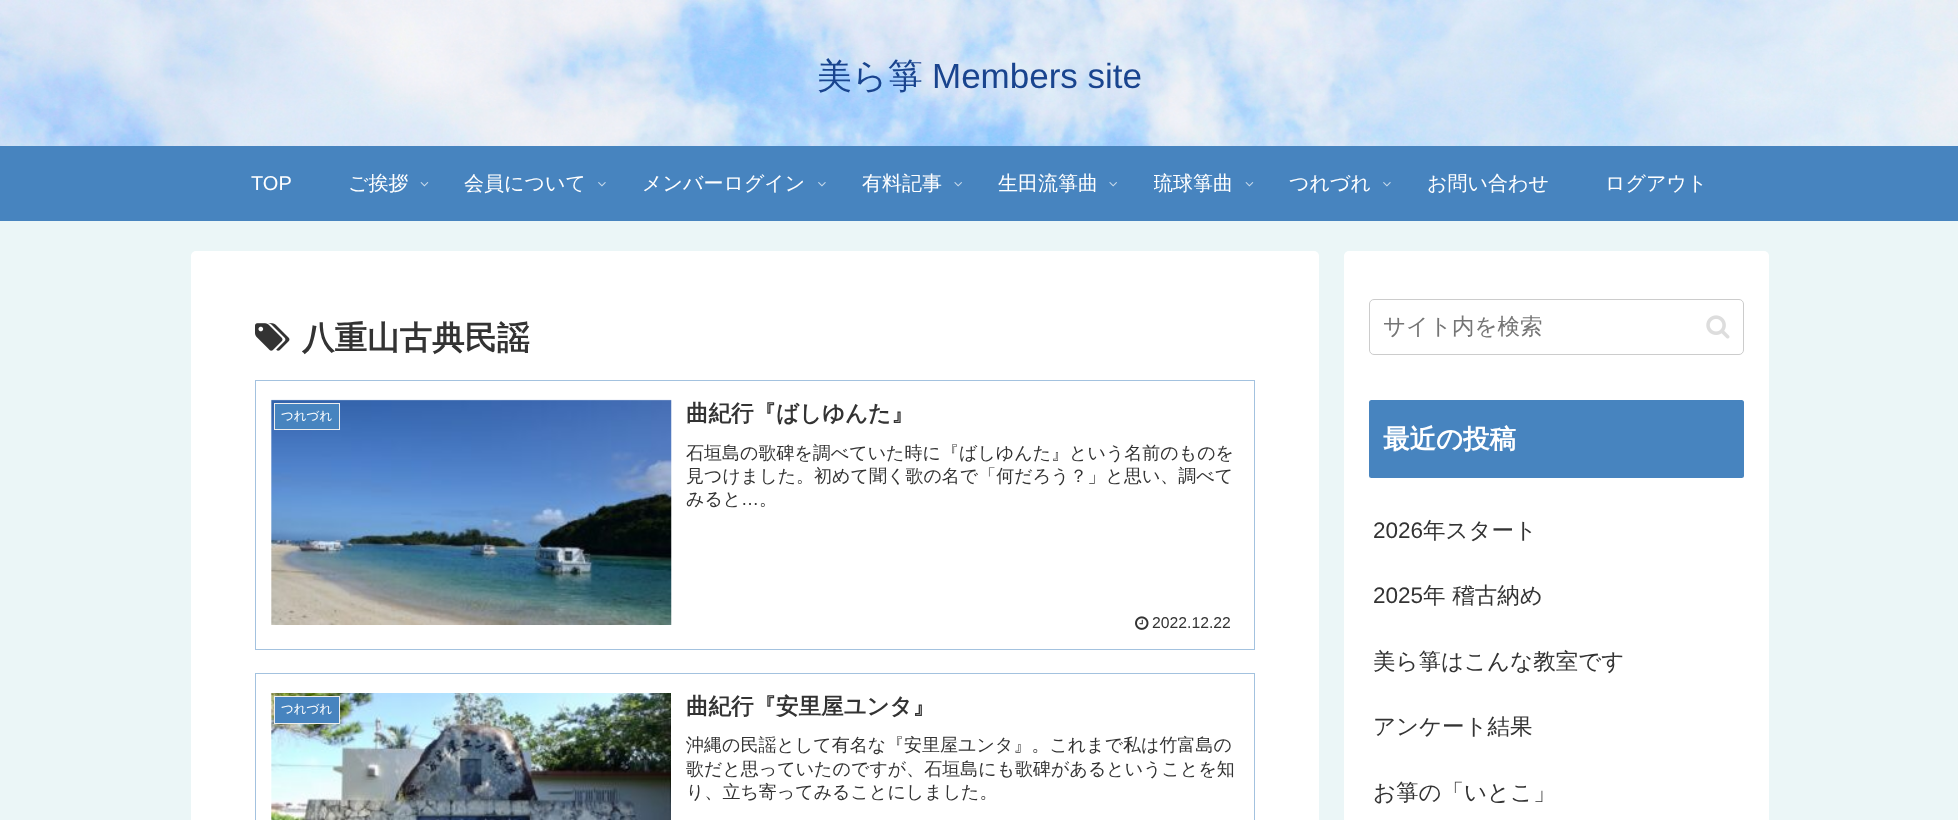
<?xml version="1.0" encoding="UTF-8"?>
<svg xmlns="http://www.w3.org/2000/svg" xmlns:xlink="http://www.w3.org/1999/xlink" width="1958" height="820">
  <defs>
    <clipPath id="clip1"><rect x="1154" y="166" width="80" height="37" /></clipPath>
  </defs>
  <rect width="100%" height="100%" fill="#ebf6f7" />
  <image x="0" y="0" width="1958" height="146" xlink:href="image1.png" />
  <rect y="146" width="1958" height="75" fill="#4784bf" />
  <image x="420" y="182" width="9" height="5" xlink:href="image2.png" />
  <image x="598" y="182" width="8" height="5" xlink:href="image3.png" />
  <image x="818" y="182" width="8" height="5" xlink:href="image3.png" />
  <image x="954" y="182" width="8" height="5" xlink:href="image4.png" />
  <image x="1109" y="182" width="8" height="5" xlink:href="image4.png" />
  <image x="1245" y="182" width="9" height="5" xlink:href="image2.png" />
  <image x="1383" y="182" width="8" height="5" xlink:href="image3.png" />
  <rect x="191" y="251" width="1128" height="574" rx="5" fill="#ffffff" />
  <image x="255" y="323" width="35" height="28" xlink:href="image5.png" />
  <rect x="255.5" y="380.5" width="999" height="269" fill="none" stroke="#a3c2df" />
  <image x="271" y="399" width="401" height="226" xlink:href="image6.png" />
  <rect x="274.5" y="403.5" width="65" height="26" fill="#4784bf" stroke="#eeeeee" />
  <image x="1135" y="616" width="14" height="14" xlink:href="image7.png" />
  <rect x="255.5" y="673.5" width="999" height="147" fill="none" stroke="#a3c2df" />
  <image x="271" y="693" width="400" height="127" xlink:href="image8.png" />
  <rect x="274.5" y="696.5" width="65" height="27" fill="#4784bf" stroke="#eeeeee" />
  <rect x="1344" y="251" width="425" height="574" rx="5" fill="#ffffff" />
  <rect x="1369.5" y="299.5" width="374" height="55" rx="4.5" fill="none" stroke="#cccccc" />
  <image x="1706" y="315" width="24" height="24" xlink:href="image9.png" />
  <rect x="1369" y="400" width="375" height="78" rx="2.5" fill="#4784bf" />
  <text x="817" y="88" style="font-family: WenQuanYi Zen Hei; font-size: 35px; font-weight: 500; fill: #19448e">美ら箏</text>
  <text x="932" y="88" style="font-family: Liberation Sans; font-size: 35px; fill: #19448e">Members site</text>
  <text x="251" y="190" style="font-family: Liberation Sans; font-size: 20px; fill: #ffffff">TOP</text>
  <text x="348" y="190" style="font-family: WenQuanYi Zen Hei; font-size: 20px; font-weight: 500; fill: #ffffff">ご挨拶</text>
  <text x="464" y="190" style="font-family: WenQuanYi Zen Hei; font-size: 20px; font-weight: 500; fill: #ffffff">会員について</text>
  <text x="642" y="190" style="font-family: WenQuanYi Zen Hei; font-size: 20px; font-weight: 500; fill: #ffffff">メンバーログイン</text>
  <text x="862" y="190" style="font-family: WenQuanYi Zen Hei; font-size: 20px; font-weight: 500; fill: #ffffff">有料記事</text>
  <text x="998" y="190" style="font-family: WenQuanYi Zen Hei; font-size: 20px; font-weight: 500; fill: #ffffff">生田流箏曲</text>
  <g clip-path="url(#clip1)">
    <text x="1153" y="190" style="font-family: WenQuanYi Zen Hei; font-size: 20px; font-weight: 500; fill: #ffffff">琉球箏曲</text>
  </g>
  <text x="1289" y="190" style="font-family: WenQuanYi Zen Hei; font-size: 20px; font-weight: 500; fill: #ffffff">つれづれ</text>
  <text x="1427" y="190" style="font-family: WenQuanYi Zen Hei; font-size: 20px; font-weight: 500; fill: #ffffff">お問い合わせ</text>
  <text x="1605" y="190" style="font-family: WenQuanYi Zen Hei; font-size: 20px; font-weight: 500; fill: #ffffff">ログアウト</text>
  <text x="302" y="349" style="font-family: WenQuanYi Zen Hei; font-size: 32.5px; font-weight: bold; fill: #333333">八重山古典民謡</text>
  <text x="281" y="420" style="font-family: WenQuanYi Zen Hei; font-size: 12.5px; font-weight: 500; fill: #ffffff">つれづれ</text>
  <text x="686" y="421" style="font-family: WenQuanYi Zen Hei; font-size: 22.5px; font-weight: bold; fill: #333333">曲紀行『ばしゆんた』</text>
  <text x="686" y="459" style="font-family: WenQuanYi Zen Hei; font-size: 18px; font-weight: 500; fill: #333333">石垣島の歌碑を調べていた時に『ばしゆんた』という名前のものを</text>
  <text x="686" y="482" style="font-family: WenQuanYi Zen Hei; font-size: 18px; font-weight: 500; fill: #333333">見つけました。初めて聞く歌の名で「何だろう？」と思い、調べて</text>
  <text x="686" y="505" style="font-family: WenQuanYi Zen Hei; font-size: 18px; font-weight: 500; fill: #333333">みると</text>
  <text x="741" y="505" style="font-family: Liberation Sans; font-size: 18px; fill: #333333">…</text>
  <text x="759" y="505" style="font-family: WenQuanYi Zen Hei; font-size: 18px; font-weight: 500; fill: #333333">。</text>
  <text x="1152" y="628" style="font-family: Liberation Sans; font-size: 15.75px; fill: #333333">2022.12.22</text>
  <text x="281" y="713" style="font-family: WenQuanYi Zen Hei; font-size: 12.5px; font-weight: 500; fill: #ffffff">つれづれ</text>
  <text x="686" y="714" style="font-family: WenQuanYi Zen Hei; font-size: 22.5px; font-weight: bold; fill: #333333">曲紀行『安里屋ユンタ』</text>
  <text x="686" y="751" style="font-family: WenQuanYi Zen Hei; font-size: 18px; font-weight: 500; fill: #333333">沖縄の民謡として有名な『安里屋ユンタ』。これまで私は竹富島の</text>
  <text x="686" y="775" style="font-family: WenQuanYi Zen Hei; font-size: 18px; font-weight: 500; fill: #333333">歌だと思っていたのですが、石垣島にも歌碑があるということを知</text>
  <text x="686" y="798" style="font-family: WenQuanYi Zen Hei; font-size: 18px; font-weight: 500; fill: #333333">り、立ち寄ってみることにしました。</text>
  <text x="1383" y="334" style="font-family: WenQuanYi Zen Hei; font-size: 22.5px; font-weight: 500; fill: #757575">サイト内を検索</text>
  <text x="1383" y="448" style="font-family: WenQuanYi Zen Hei; font-size: 26.5px; font-weight: bold; fill: #ffffff">最近の投稿</text>
  <text x="1373" y="538" style="font-family: Liberation Sans; font-size: 22.5px; fill: #333333">2026</text>
  <text x="1423" y="538" style="font-family: WenQuanYi Zen Hei; font-size: 22.5px; font-weight: 500; fill: #333333">年スタート</text>
  <text x="1373" y="603" style="font-family: Liberation Sans; font-size: 22.5px; fill: #333333">2025</text>
  <text x="1423" y="603" style="font-family: WenQuanYi Zen Hei; font-size: 22.5px; font-weight: 500; fill: #333333">年 稽古納め</text>
  <text x="1373" y="669" style="font-family: WenQuanYi Zen Hei; font-size: 22.5px; font-weight: 500; fill: #333333">美ら箏はこんな教室です</text>
  <text x="1373" y="734" style="font-family: WenQuanYi Zen Hei; font-size: 22.5px; font-weight: 500; fill: #333333">アンケート結果</text>
  <text x="1373" y="800" style="font-family: WenQuanYi Zen Hei; font-size: 22.5px; font-weight: 500; fill: #333333">お箏の「いとこ」</text>
</svg>
